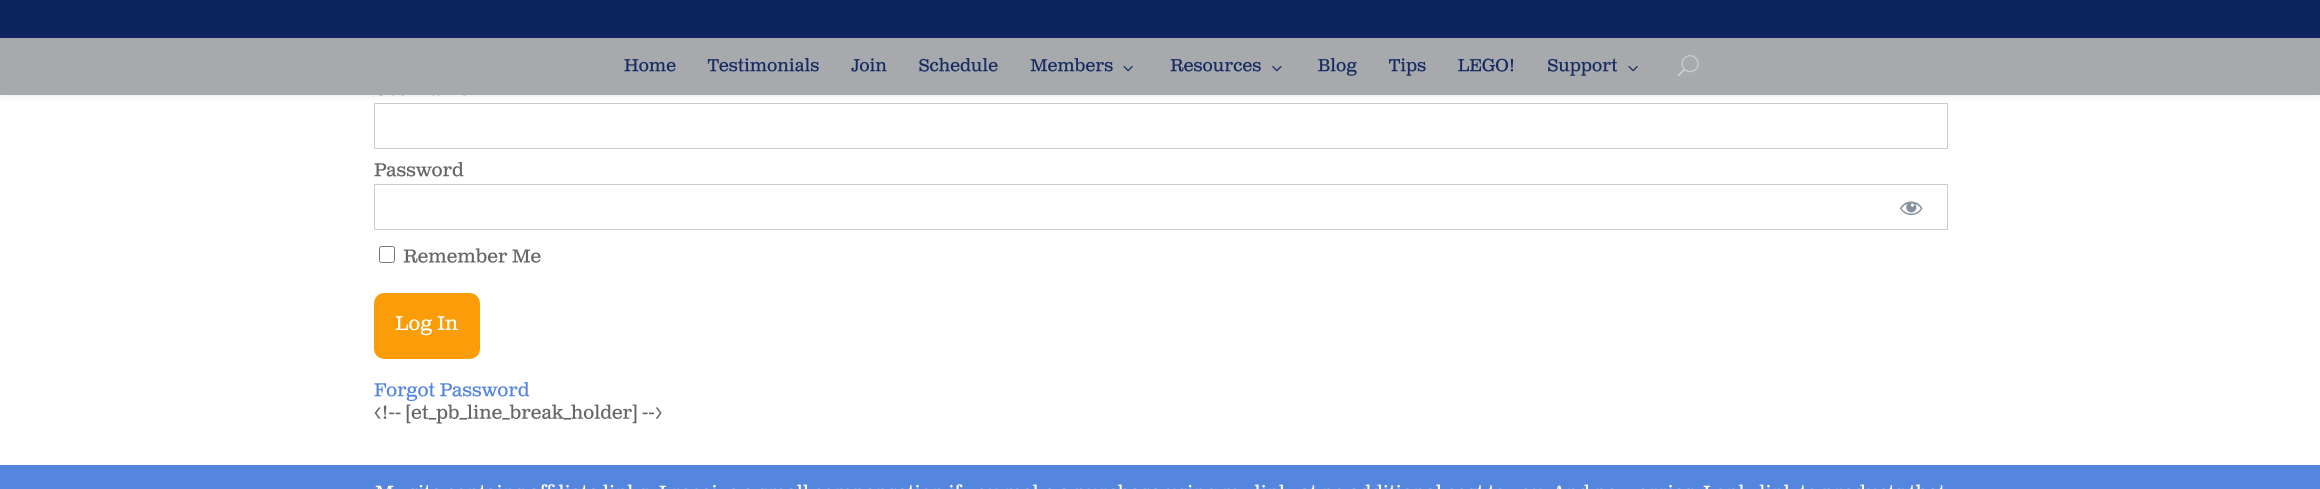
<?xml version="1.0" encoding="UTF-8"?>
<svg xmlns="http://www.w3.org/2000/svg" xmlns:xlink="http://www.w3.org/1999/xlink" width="2320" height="489">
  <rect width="100%" height="100%" fill="#ffffff" />
  <image x="379" y="95" width="87" height="1" xlink:href="image14.png" />
  <rect x="374.5" y="103.5" width="1573" height="45" fill="none" stroke="#cccccc" />
  <rect width="2320" height="95" fill="#000000" fill-opacity="0.1" filter="blur(4.5px)" />
  <rect width="2320" height="38" fill="#0c2460" />
  <rect y="38" width="2320" height="57" fill="#a7a9ac" />
  <image x="624" y="59" width="52" height="13" xlink:href="image1.png" />
  <image x="707" y="58" width="112" height="14" xlink:href="image2.png" />
  <image x="851" y="58" width="36" height="14" xlink:href="image3.png" />
  <image x="919" y="57" width="79" height="15" xlink:href="image4.png" />
  <image x="1030" y="57" width="83" height="15" xlink:href="image5.png" />
  <image x="1123" y="66" width="10" height="6" xlink:href="image6.png" />
  <image x="1170" y="59" width="91" height="13" xlink:href="image7.png" />
  <image x="1272" y="66" width="10" height="6" xlink:href="image8.png" />
  <image x="1318" y="57" width="39" height="19" xlink:href="image9.png" />
  <image x="1389" y="58" width="37" height="18" xlink:href="image10.png" />
  <image x="1458" y="58" width="56" height="14" xlink:href="image11.png" />
  <image x="1548" y="58" width="70" height="18" xlink:href="image12.png" />
  <image x="1628" y="66" width="10" height="6" xlink:href="image6.png" />
  <image x="1677" y="55" width="22" height="22" xlink:href="image13.png" />
  <image x="374" y="162" width="90" height="15" xlink:href="image15.png" />
  <rect x="374.5" y="184.5" width="1573" height="45" fill="none" stroke="#cccccc" />
  <image x="1900" y="201" width="23" height="15" xlink:href="image16.png" />
  <rect x="379.5" y="246.5" width="15" height="16" rx="2" fill="none" stroke="#767676" />
  <image x="403" y="248" width="138" height="15" xlink:href="image17.png" />
  <rect x="374" y="293" width="106" height="66" rx="10" fill="#fb9d09" />
  <image x="395" y="316" width="63" height="20" xlink:href="image18.png" />
  <image x="374" y="382" width="156" height="20" xlink:href="image19.png" />
  <image x="374" y="404" width="288" height="20" xlink:href="image20.png" />
  <rect y="465" width="2320" height="24" fill="#5486dd" />
  <image x="375" y="484" width="273" height="5" xlink:href="image21.png" />
  <image x="659" y="484" width="1284" height="5" xlink:href="image22.png" />
</svg>
